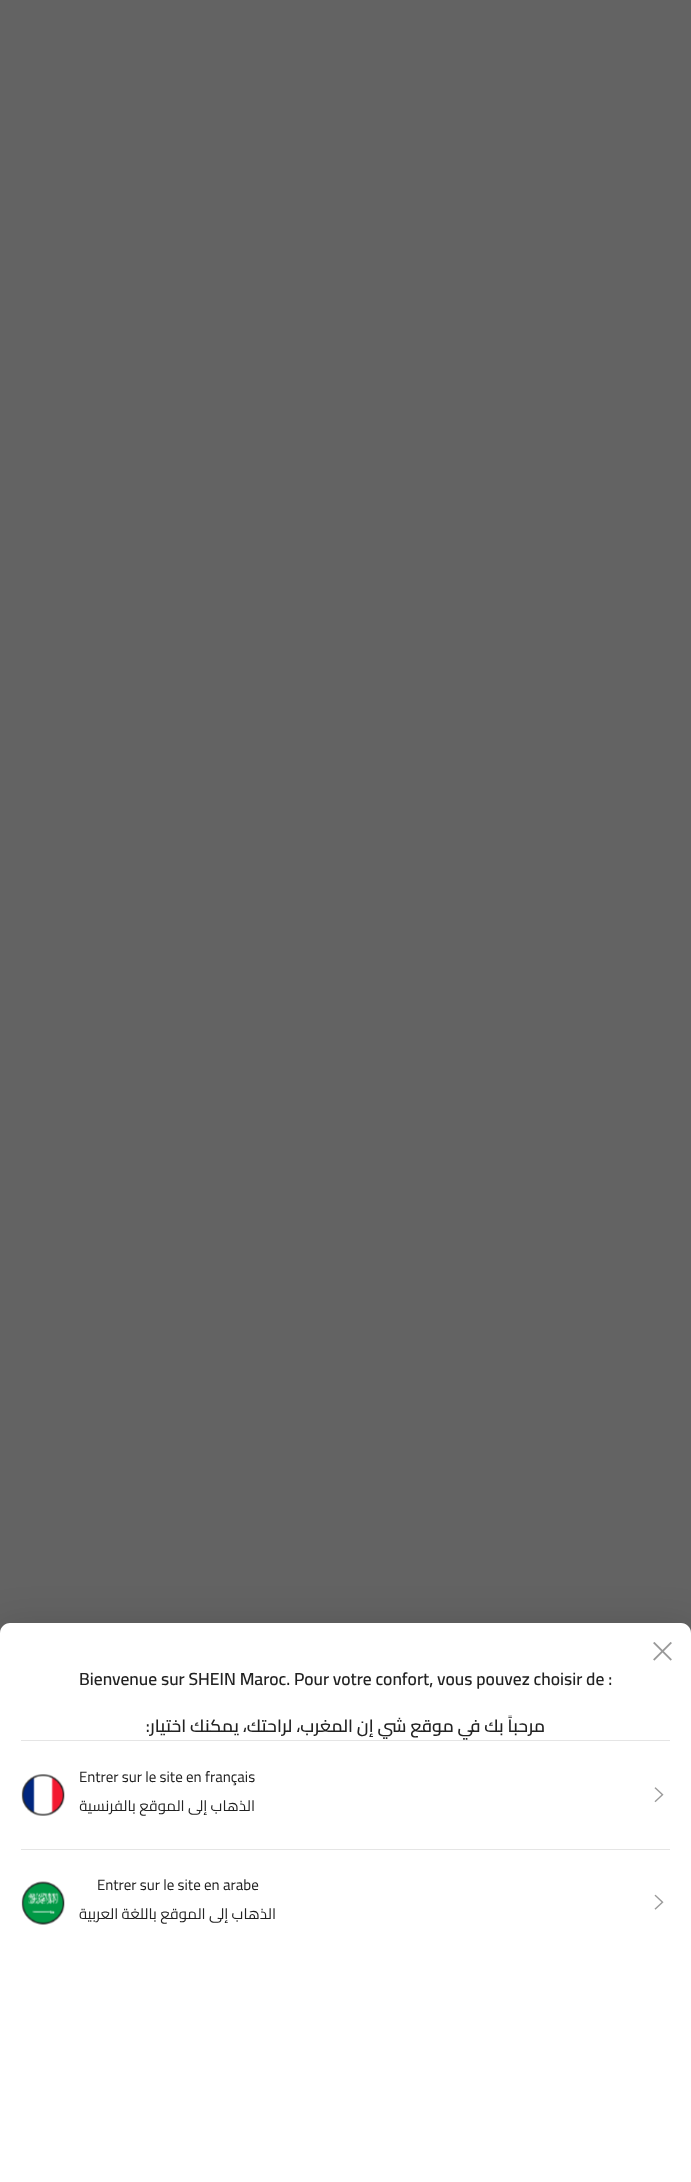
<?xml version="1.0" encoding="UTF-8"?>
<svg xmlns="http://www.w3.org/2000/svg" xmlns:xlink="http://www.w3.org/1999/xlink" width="691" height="2182">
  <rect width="100%" height="100%" fill="#636363" />
  <rect x="-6" y="1624" width="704" height="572" rx="16" fill="#000000" fill-opacity="0.12" filter="blur(19px)" />
  <path d="M 10 1623 h 671 c 5.5 0 10 4.5 10 10 v 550 h -691 v -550 c 0 -5.5 4.5 -10 10 -10 z" fill="#ffffff" />
  <image x="653" y="1642" width="19" height="19" xlink:href="image1.png" />
  <rect x="21" y="1740" width="649" height="1" fill="#e5e5e5" />
  <image x="21" y="1774" width="44" height="42" xlink:href="image2.png" />
  <image x="654" y="1787" width="10" height="16" xlink:href="image3.png" />
  <rect x="21" y="1849" width="649" height="1" fill="#e5e5e5" />
  <image x="21" y="1881" width="44" height="44" xlink:href="image4.png" />
  <image x="654" y="1894" width="10" height="16" xlink:href="image5.png" />
  <text x="79" y="1685" style="font-family: Cairo; font-size: 17.5px; font-weight: 600; fill: #222222">Bienvenue sur SHEIN Maroc. Pour votre confort, vous pouvez choisir de :</text>
  <text x="545" y="1732" style="font-family: Cairo; font-size: 17.5px; font-weight: 600; direction: rtl; fill: #222222">مرحباً بك في موقع شي إن المغرب، لراحتك، يمكنك اختيار:</text>
  <text x="79" y="1782" style="font-family: Cairo; font-size: 15px; fill: #222222">Entrer sur le site en français</text>
  <text x="255" y="1811" style="font-family: Cairo; font-size: 15px; direction: rtl; fill: #222222">الذهاب إلى الموقع بالفرنسية</text>
  <text x="97" y="1890" style="font-family: Cairo; font-size: 15px; fill: #222222">Entrer sur le site en arabe</text>
  <text x="276" y="1919" style="font-family: Cairo; font-size: 15px; direction: rtl; fill: #222222">الذهاب إلى الموقع باللغة العربية</text>
</svg>
